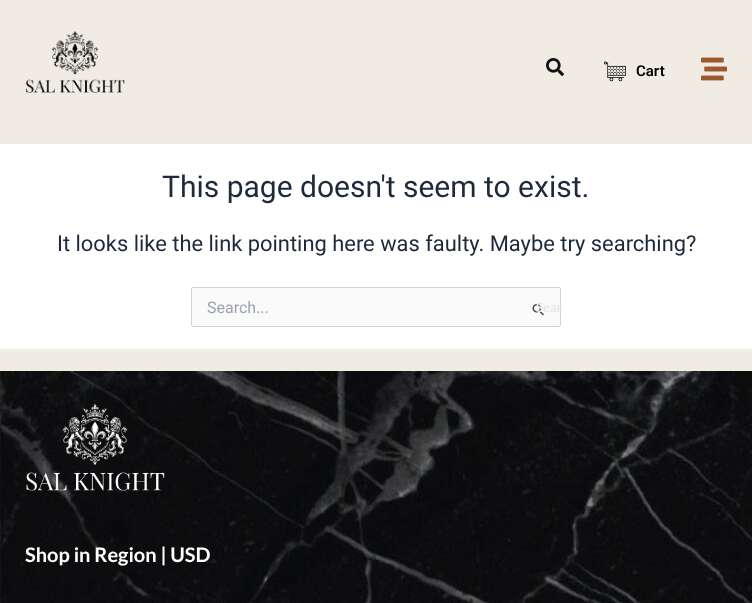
<?xml version="1.0" encoding="UTF-8"?>
<svg xmlns="http://www.w3.org/2000/svg" xmlns:xlink="http://www.w3.org/1999/xlink" width="752" height="603">
  <rect width="100%" height="100%" fill="#f0ece4" />
  <image x="26" y="31" width="99" height="62" xlink:href="image1.png" />
  <image x="546" y="58" width="18" height="18" xlink:href="image2.png" />
  <image x="604" y="61" width="22" height="21" xlink:href="image3.png" />
  <image x="701" y="57" width="26" height="24" xlink:href="image4.png" />
  <rect y="144" width="752" height="205" fill="#ffffff" />
  <rect x="191.5" y="287.5" width="369" height="39" rx="1.5" fill="#fafafa" stroke="#d1d5db" />
  <image x="532" y="304" width="12" height="12" xlink:href="image5.png" />
  <image x="0" y="371" width="752" height="232" xlink:href="image6.png" />
  <image x="26" y="403" width="139" height="88" xlink:href="image7.png" />
  <text x="636" y="76" style="font-family: Roboto; font-size: 15px; font-weight: 600; fill: #000000">Cart</text>
  <text x="162" y="197" style="font-family: Roboto; font-size: 30px; fill: #1e293b">This page doesn't seem to exist.</text>
  <text x="57" y="251" style="font-family: Roboto; font-size: 21.9px; fill: #1e293b">It looks like the link pointing here was faulty. Maybe try searching?</text>
  <text x="207" y="313" style="font-family: Roboto; font-size: 16px; fill: #9ca3af">Search...</text>
  <text x="536" y="312" style="font-family: Lato; font-size: 13px; font-weight: bold; fill: #e6e7e7">Sear</text>
  <text x="25" y="562" style="font-family: Lato; font-size: 20px; font-weight: bold; fill: #ffffff">Shop in Region | USD</text>
</svg>
